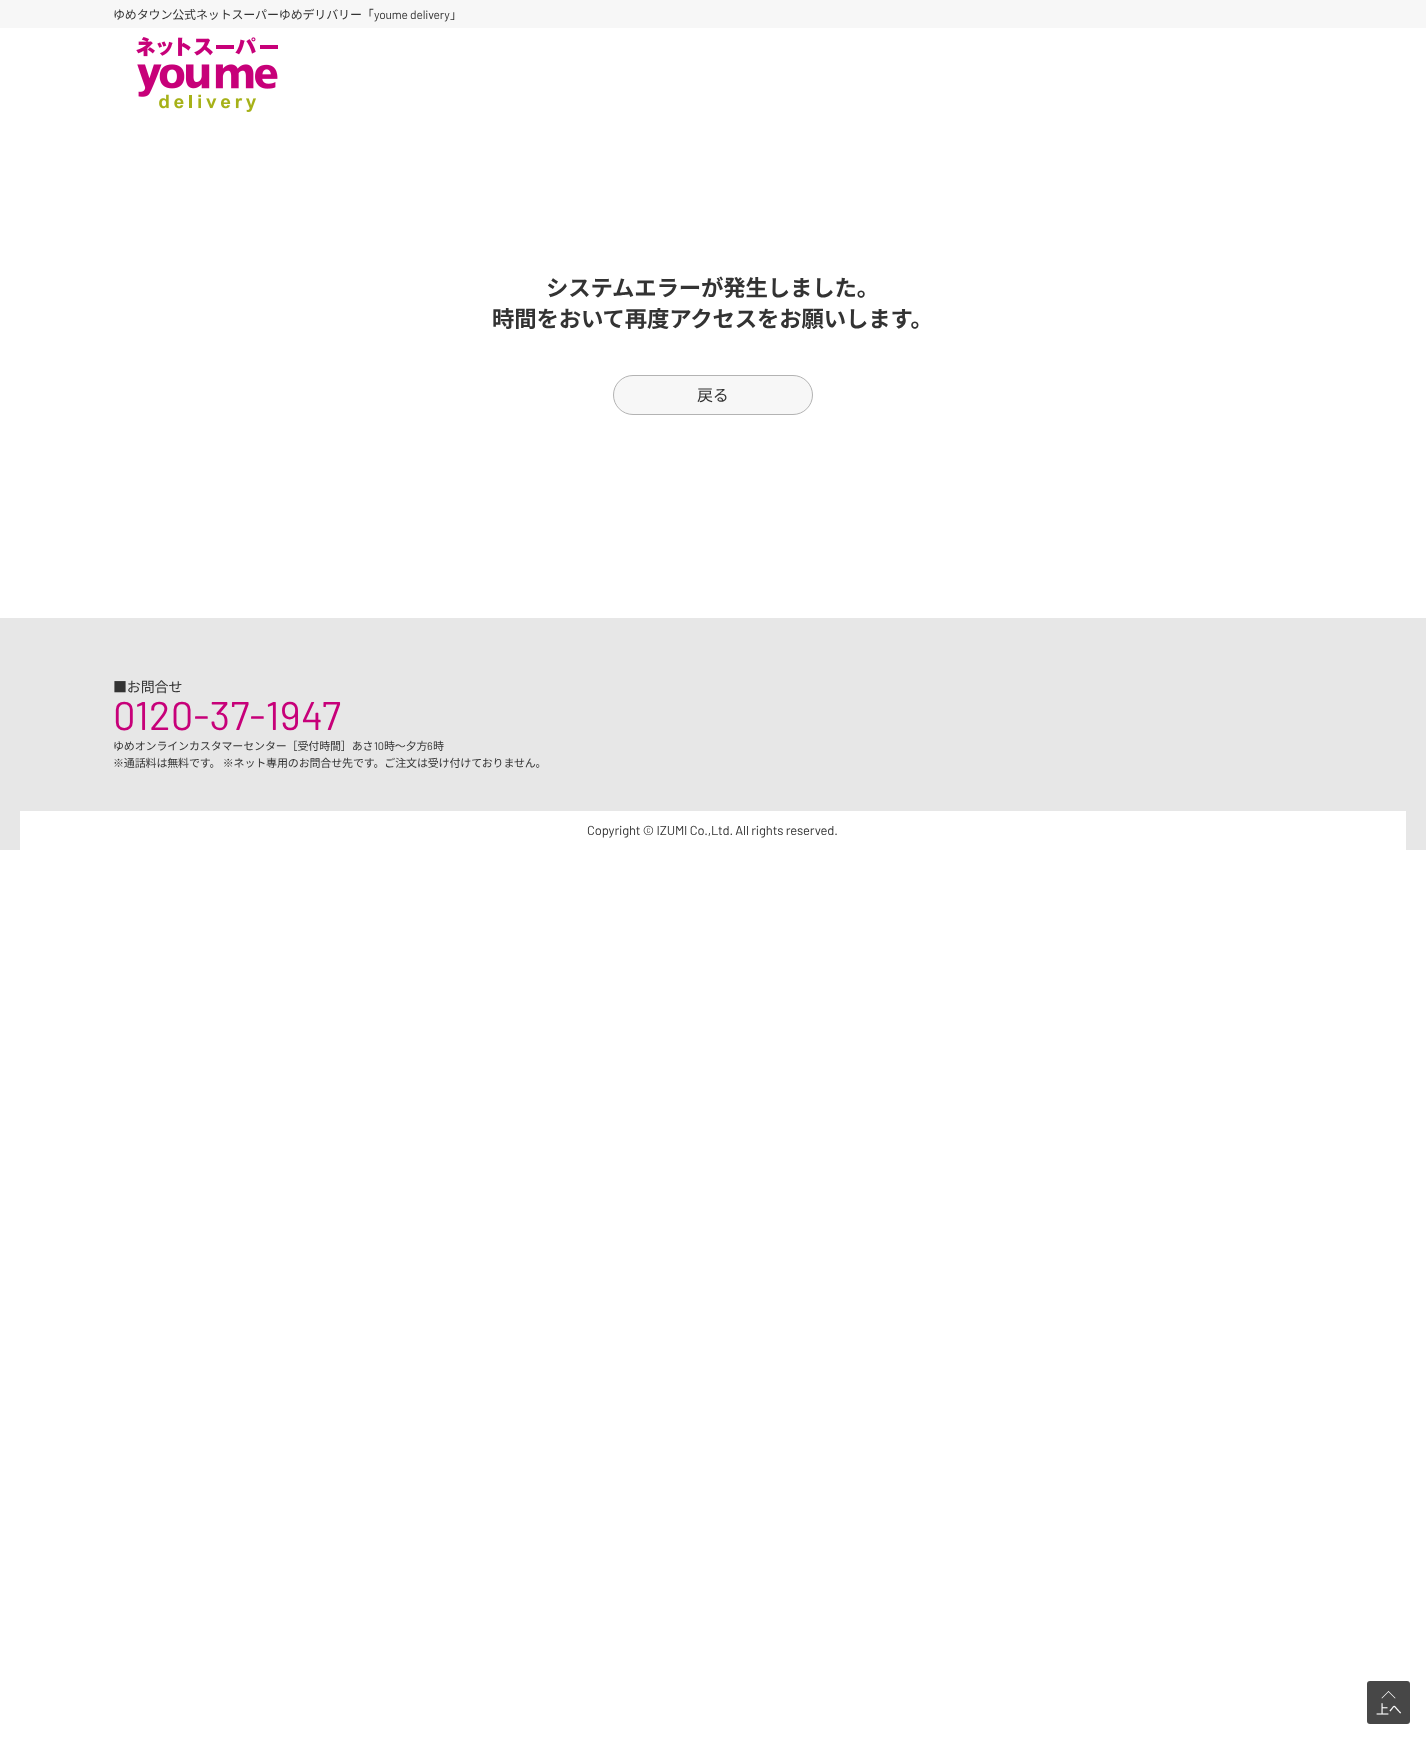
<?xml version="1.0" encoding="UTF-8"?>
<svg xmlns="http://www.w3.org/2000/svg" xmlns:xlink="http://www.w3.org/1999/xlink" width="1426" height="1740">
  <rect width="100%" height="100%" fill="#ffffff" />
  <rect width="1426" height="28" fill="#f7f7f7" />
  <image x="136" y="37" width="142" height="75" xlink:href="image1.png" />
  <rect x="613.5" y="375.5" width="199" height="39" rx="19.5" fill="#f7f7f7" stroke="#b3b3b3" />
  <rect y="618" width="1426" height="232" fill="#e7e7e7" />
  <rect x="20" y="811" width="1386" height="39" fill="#ffffff" />
  <rect x="1367" y="1681" width="43" height="43" rx="3" fill="#474747" />
  <path d="M 1381.5 1698 l 7 -7 l 0.5 0.5 l -7 7 z" fill="#ffffff" />
  <path d="M 1388 1691.5 l 0.5 -0.5 l 7 7 l -0.5 0.5 z" fill="#ffffff" />
  <text x="113" y="19" style="font-family: Noto Sans JP; font-size: 12px; letter-spacing: -0.15px; fill: #333333">ゆめタウン公式ネットスーパーゆめデリバリー「</text>
  <text x="374" y="19" style="font-family: Barlow; font-size: 12px; letter-spacing: -0.15px; fill: #333333">youme delivery</text>
  <text x="450" y="19" style="font-family: Noto Sans JP; font-size: 12px; letter-spacing: -0.15px; fill: #333333">」</text>
  <text x="546" y="296" style="font-family: Noto Sans JP; font-size: 22.4px; font-weight: bold; letter-spacing: -0.15px; fill: #333333">システムエラーが発生しました。</text>
  <text x="492" y="327" style="font-family: Noto Sans JP; font-size: 22.4px; font-weight: bold; letter-spacing: -0.15px; fill: #333333">時間をおいて再度アクセスをお願いします。</text>
  <text x="697" y="401" style="font-family: Noto Sans JP; font-size: 16px; letter-spacing: -0.15px; fill: #333333">戻る</text>
  <text x="113" y="692" style="font-family: Noto Sans JP; font-size: 14px; letter-spacing: -0.15px; fill: #333333">■お問合せ</text>
  <text x="113" y="730" style="font-family: Barlow; font-size: 40px; letter-spacing: 0.25px; fill: #c70079">0120-37-1947</text>
  <text x="113" y="750" style="font-family: Noto Sans JP; font-size: 11px; letter-spacing: -0.15px; fill: #333333">ゆめオンラインカスタマーセンター［受付時間］あさ</text>
  <text x="374" y="750" style="font-family: Barlow; font-size: 11px; letter-spacing: -0.15px; fill: #333333">10</text>
  <text x="384" y="750" style="font-family: Noto Sans JP; font-size: 11px; letter-spacing: -0.15px; fill: #333333">時～夕方</text>
  <text x="427" y="750" style="font-family: Barlow; font-size: 11px; letter-spacing: -0.15px; fill: #333333">6</text>
  <text x="433" y="750" style="font-family: Noto Sans JP; font-size: 11px; letter-spacing: -0.15px; fill: #333333">時</text>
  <text x="113" y="767" style="font-family: Noto Sans JP; font-size: 11px; letter-spacing: -0.15px; fill: #333333">※通話料は無料です。 ※ネット専用のお問合せ先です。ご注文は受け付けておりません。</text>
  <text x="587" y="835" style="font-family: Barlow; font-size: 13px; letter-spacing: -0.15px; fill: #333333">Copyright © IZUMI Co.,Ltd. All rights reserved.</text>
  <text x="1376" y="1714" style="font-family: Noto Sans JP; font-size: 13px; letter-spacing: -0.15px; fill: #ffffff">上へ</text>
</svg>
